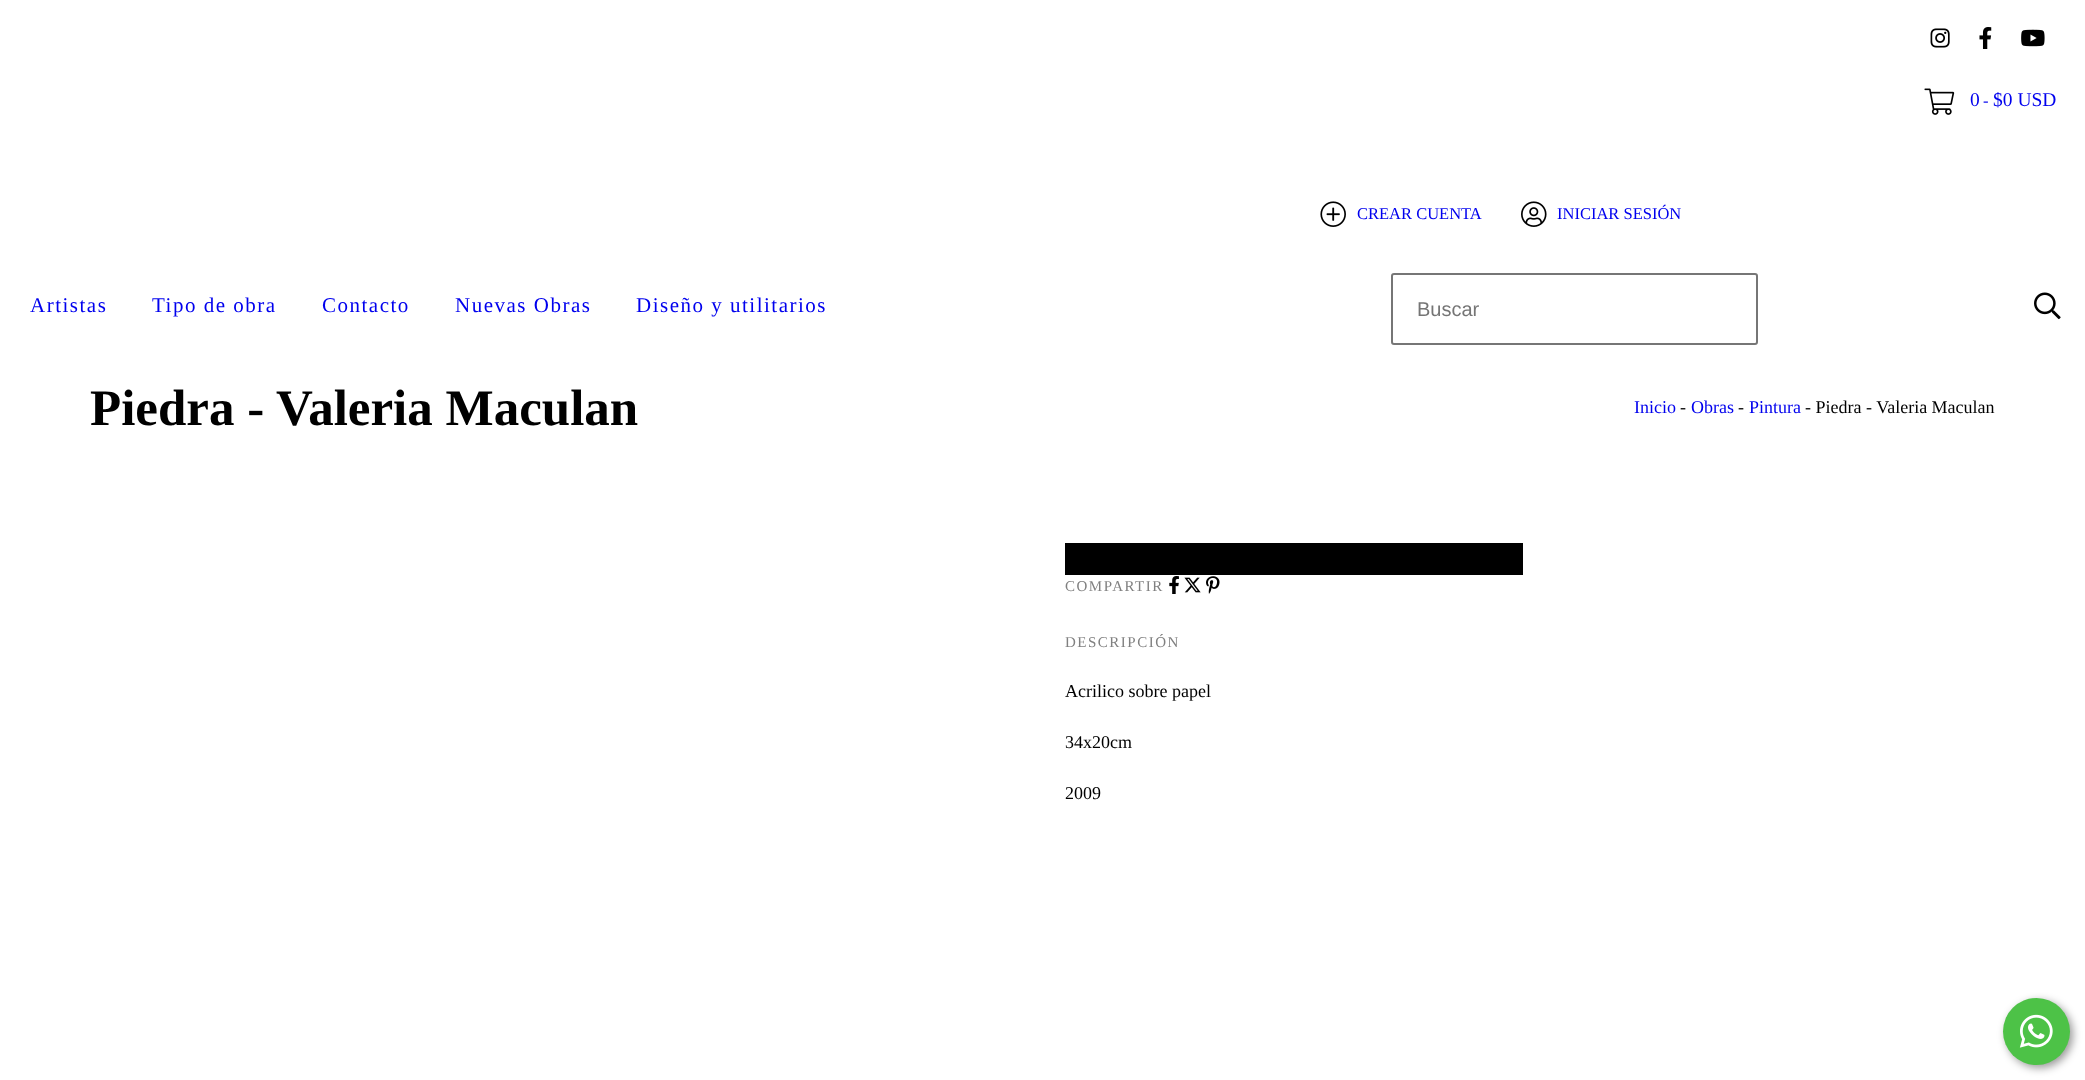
<?xml version="1.0" encoding="UTF-8"?>
<svg xmlns="http://www.w3.org/2000/svg" xmlns:xlink="http://www.w3.org/1999/xlink" width="2085" height="1080">
  <rect width="100%" height="100%" fill="#ffffff" />
  <image x="1930" y="28" width="20" height="20" xlink:href="image1.png" />
  <image x="1979" y="27" width="13" height="22" xlink:href="image2.png" />
  <image x="2021" y="29" width="24" height="18" xlink:href="image3.png" />
  <image x="1924" y="88" width="31" height="27" xlink:href="image4.png" />
  <image x="1320" y="201" width="26" height="26" xlink:href="image5.png" />
  <image x="1521" y="201" width="26" height="26" xlink:href="image6.png" />
  <rect x="1392" y="274" width="365" height="70" rx="2" fill="none" stroke="#767676" stroke-width="2" />
  <image x="2034" y="292" width="27" height="28" xlink:href="image7.png" />
  <rect x="1065" y="543" width="458" height="32" fill="#000000" />
  <image x="1169" y="576" width="10" height="18" xlink:href="image8.png" />
  <image x="1184" y="577" width="17" height="16" xlink:href="image9.png" />
  <image x="1206" y="576" width="14" height="18" xlink:href="image10.png" />
  <rect x="2006" y="1001" width="67" height="67" rx="33.5" fill="#000000" fill-opacity="0.4" filter="blur(4.5px)" />
  <circle cx="2036.5" cy="1031.5" r="33.5" fill="#4dc247" />
  <image x="2019" y="1014" width="34" height="34" xlink:href="image11.png" />
  <text x="1970" y="106" style="font-family: Liberation Serif; font-size: 19.5px; fill: #0000ee">0</text>
  <text x="1983" y="106" style="font-family: Liberation Serif; font-size: 16.5px; fill: #0000ee">-</text>
  <text x="1993" y="106" style="font-family: Liberation Serif; font-size: 19.5px; fill: #0000ee">$0 USD</text>
  <text x="1357" y="219" style="font-family: Liberation Serif; font-size: 16.5px; fill: #0000ee">CREAR CUENTA</text>
  <text x="1557" y="219" style="font-family: Liberation Serif; font-size: 16.5px; fill: #0000ee">INICIAR SESIÓN</text>
  <text x="30" y="312" style="font-family: Liberation Serif; font-size: 21px; letter-spacing: 1.5px; fill: #0000ee">Artistas</text>
  <text x="152" y="312" style="font-family: Liberation Serif; font-size: 21px; letter-spacing: 1.5px; fill: #0000ee">Tipo de obra</text>
  <text x="322" y="312" style="font-family: Liberation Serif; font-size: 21px; letter-spacing: 1.5px; fill: #0000ee">Contacto</text>
  <text x="455" y="312" style="font-family: Liberation Serif; font-size: 21px; letter-spacing: 1.5px; fill: #0000ee">Nuevas Obras</text>
  <text x="636" y="312" style="font-family: Liberation Serif; font-size: 21px; letter-spacing: 1.5px; fill: #0000ee">Diseño y utilitarios</text>
  <text x="1417" y="316" style="font-family: Liberation Sans; font-size: 20px; fill: #757575">Buscar</text>
  <text x="90" y="425" style="font-family: Liberation Serif; font-size: 51px; font-weight: bold; fill: #000000">Piedra - Valeria Maculan</text>
  <text x="1634" y="413" style="font-family: Liberation Serif; font-size: 18px; fill: #0000ee">Inicio</text>
  <text x="1680" y="413" style="font-family: Liberation Serif; font-size: 18px; fill: #000000">-</text>
  <text x="1691" y="413" style="font-family: Liberation Serif; font-size: 18px; fill: #0000ee">Obras</text>
  <text x="1738" y="413" style="font-family: Liberation Serif; font-size: 18px; fill: #000000">-</text>
  <text x="1749" y="413" style="font-family: Liberation Serif; font-size: 18px; fill: #0000ee">Pintura</text>
  <text x="1805" y="413" style="font-family: Liberation Serif; font-size: 18px; fill: #000000">- Piedra - Valeria Maculan</text>
  <text x="1065" y="591" style="font-family: Liberation Serif; font-size: 15px; letter-spacing: 1.5px; fill: #808080">COMPARTIR</text>
  <text x="1065" y="647" style="font-family: Liberation Serif; font-size: 15px; letter-spacing: 1.5px; fill: #808080">DESCRIPCIÓN</text>
  <text x="1065" y="697" style="font-family: Liberation Serif; font-size: 18px; fill: #000000">Acrilico sobre papel</text>
  <text x="1065" y="748" style="font-family: Liberation Serif; font-size: 18px; fill: #000000">34x20cm</text>
  <text x="1065" y="799" style="font-family: Liberation Serif; font-size: 18px; fill: #000000">2009</text>
</svg>
